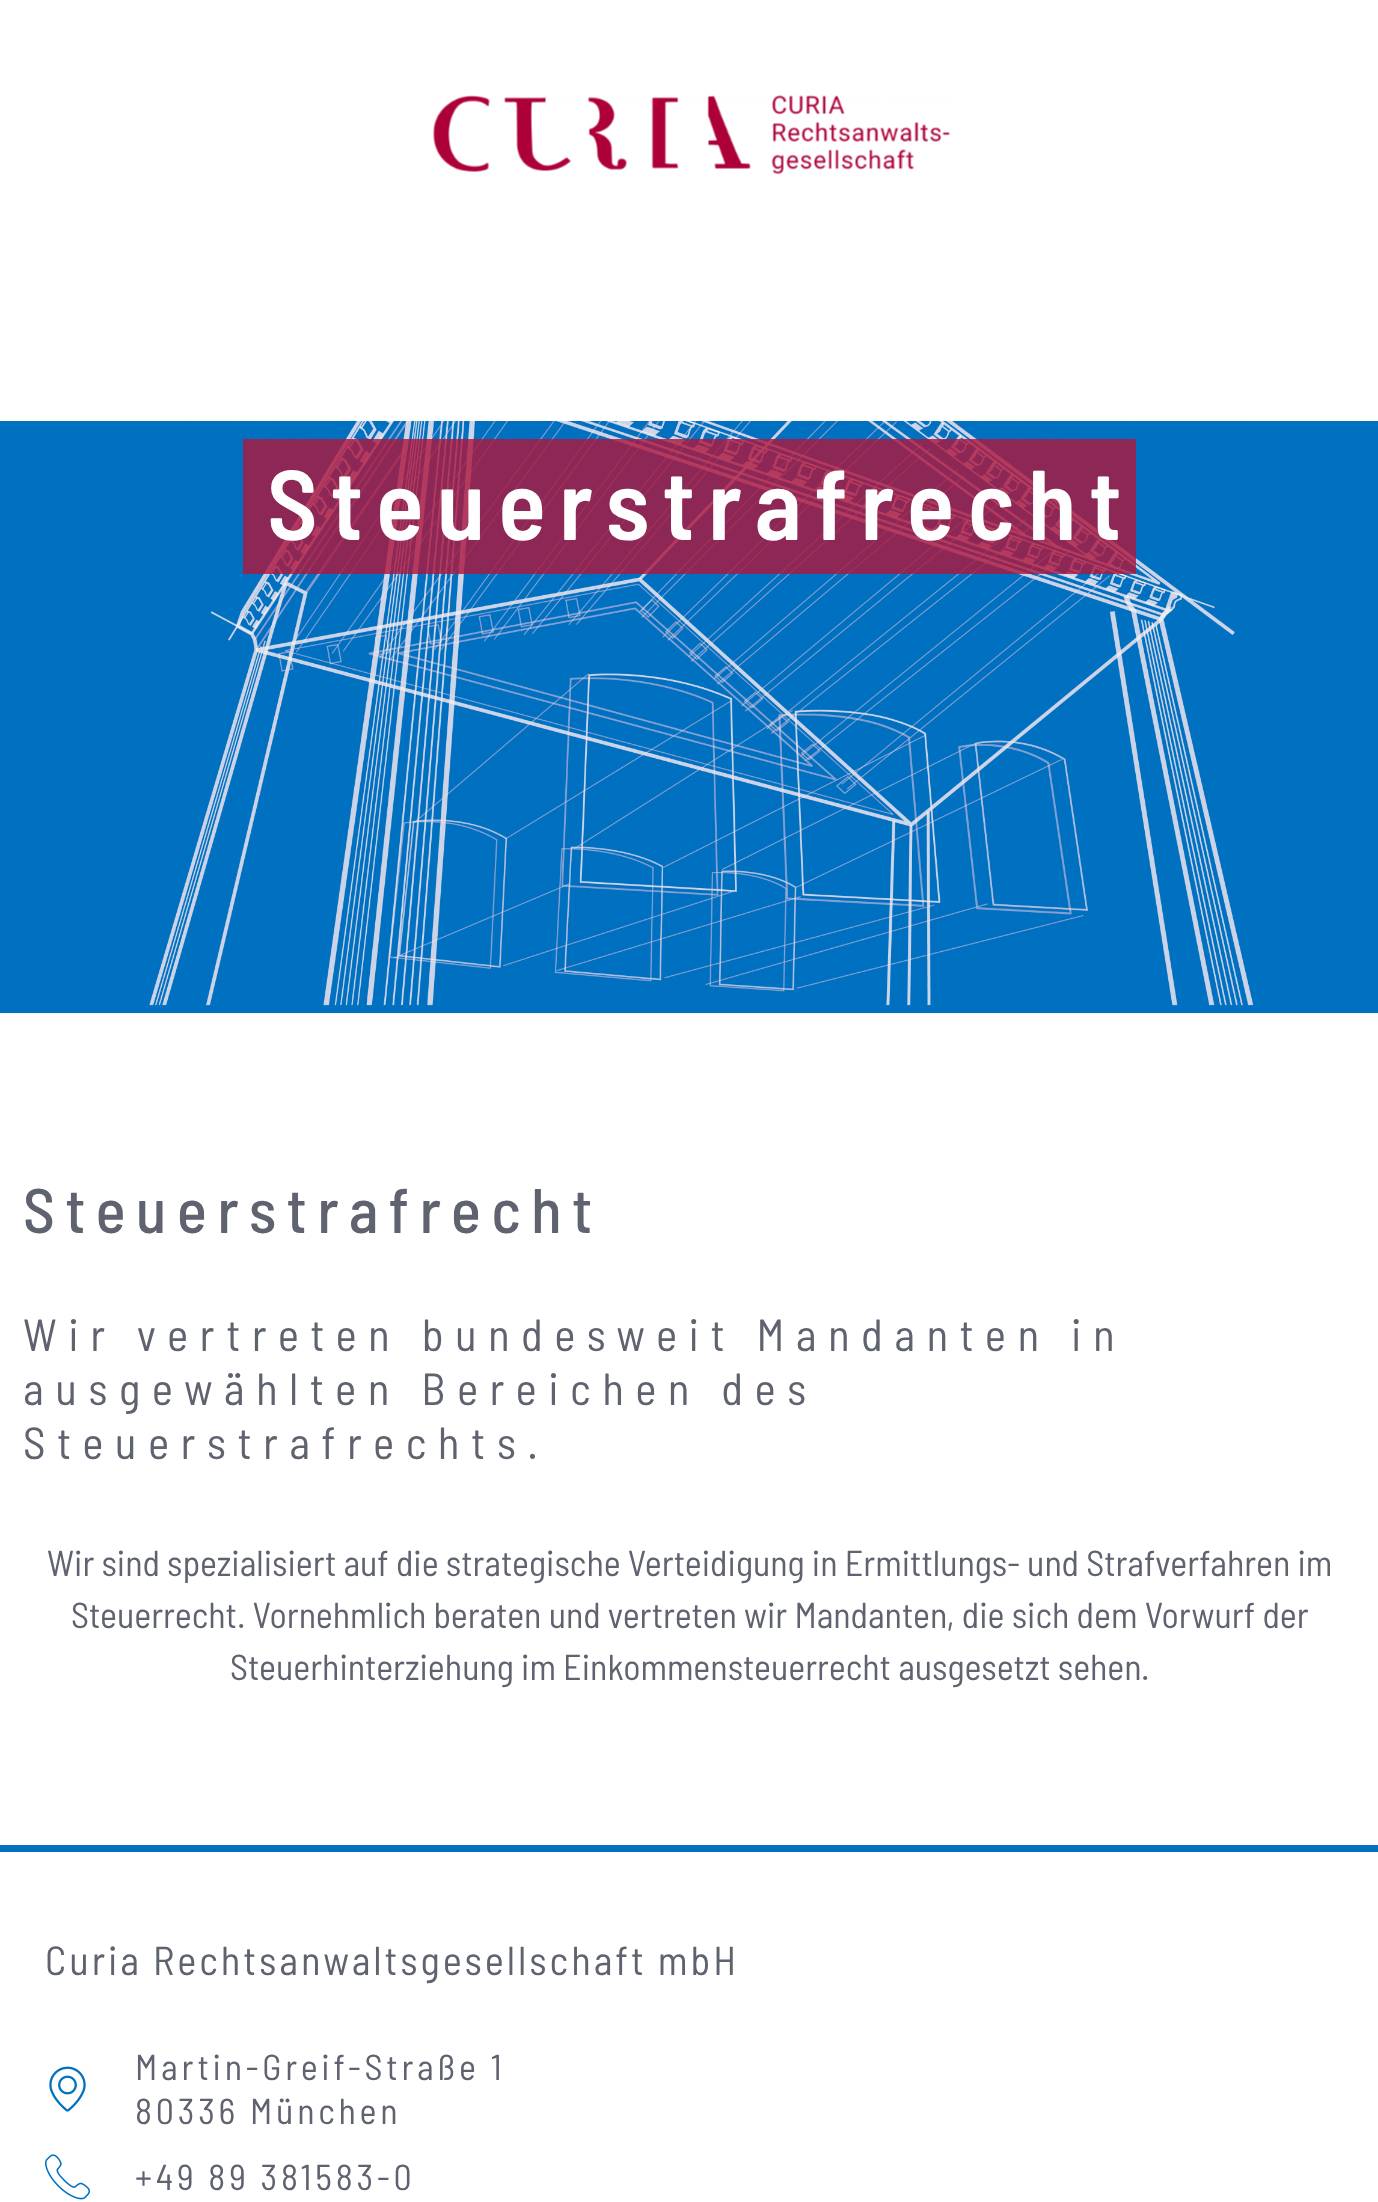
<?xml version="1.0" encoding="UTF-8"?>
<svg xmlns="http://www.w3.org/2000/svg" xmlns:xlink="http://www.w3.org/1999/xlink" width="1378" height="2202">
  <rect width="100%" height="100%" fill="#ffffff" />
  <image x="433" y="95" width="517" height="80" xlink:href="image1.png" />
  <rect y="421" width="1378" height="592" fill="#0070c0" />
  <image x="149" y="421" width="1105" height="585" xlink:href="image2.png" />
  <rect x="243" y="439" width="893" height="135" fill="#ac163d" fill-opacity="0.81" />
  <rect y="1845" width="1378" height="7" fill="#0070c0" />
  <image x="49" y="2066" width="37" height="46" xlink:href="image3.png" />
  <image x="45" y="2154" width="45" height="46" xlink:href="image4.png" />
  <text x="267" y="540" style="font-family: Barlow Semi Condensed; font-size: 99px; font-weight: 600; letter-spacing: 13px; fill: #ffffff">Steuerstrafrecht</text>
  <text x="23" y="1233" style="font-family: Barlow Semi Condensed; font-size: 63px; font-weight: 500; letter-spacing: 10.3px; fill: #5f626f">Steuerstrafrecht</text>
  <text x="23" y="1351" style="font-family: Barlow Semi Condensed; font-size: 45px; letter-spacing: 11.45px; fill: #5f626f">Wir vertreten bundesweit Mandanten in</text>
  <text x="23" y="1405" style="font-family: Barlow Semi Condensed; font-size: 45px; letter-spacing: 11.45px; fill: #5f626f">ausgewählten Bereichen des</text>
  <text x="23" y="1459" style="font-family: Barlow Semi Condensed; font-size: 45px; letter-spacing: 11.45px; fill: #5f626f">Steuerstrafrechts.</text>
  <text x="47" y="1576" style="font-family: Barlow Semi Condensed; font-size: 36px; fill: #5f626f">Wir sind spezialisiert auf die strategische Verteidigung in Ermittlungs- und Strafverfahren im</text>
  <text x="71" y="1628" style="font-family: Barlow Semi Condensed; font-size: 36px; fill: #5f626f">Steuerrecht. Vornehmlich beraten und vertreten wir Mandanten, die sich dem Vorwurf der</text>
  <text x="230" y="1680" style="font-family: Barlow Semi Condensed; font-size: 36px; fill: #5f626f">Steuerhinterziehung im Einkommensteuerrecht ausgesetzt sehen.</text>
  <text x="45" y="1975" style="font-family: Barlow Semi Condensed; font-size: 40.5px; letter-spacing: 2.95px; fill: #5f626f">Curia Rechtsanwaltsgesellschaft mbH</text>
  <text x="135" y="2080" style="font-family: Barlow Semi Condensed; font-size: 36px; letter-spacing: 3.8px; fill: #5f626f">Martin-Greif-Straße 1</text>
  <text x="135" y="2124" style="font-family: Barlow Semi Condensed; font-size: 36px; letter-spacing: 3.8px; fill: #5f626f">80336 München</text>
  <text x="135" y="2190" style="font-family: Barlow Semi Condensed; font-size: 36px; letter-spacing: 3.8px; fill: #5f626f">+49 89 381583-0</text>
</svg>
